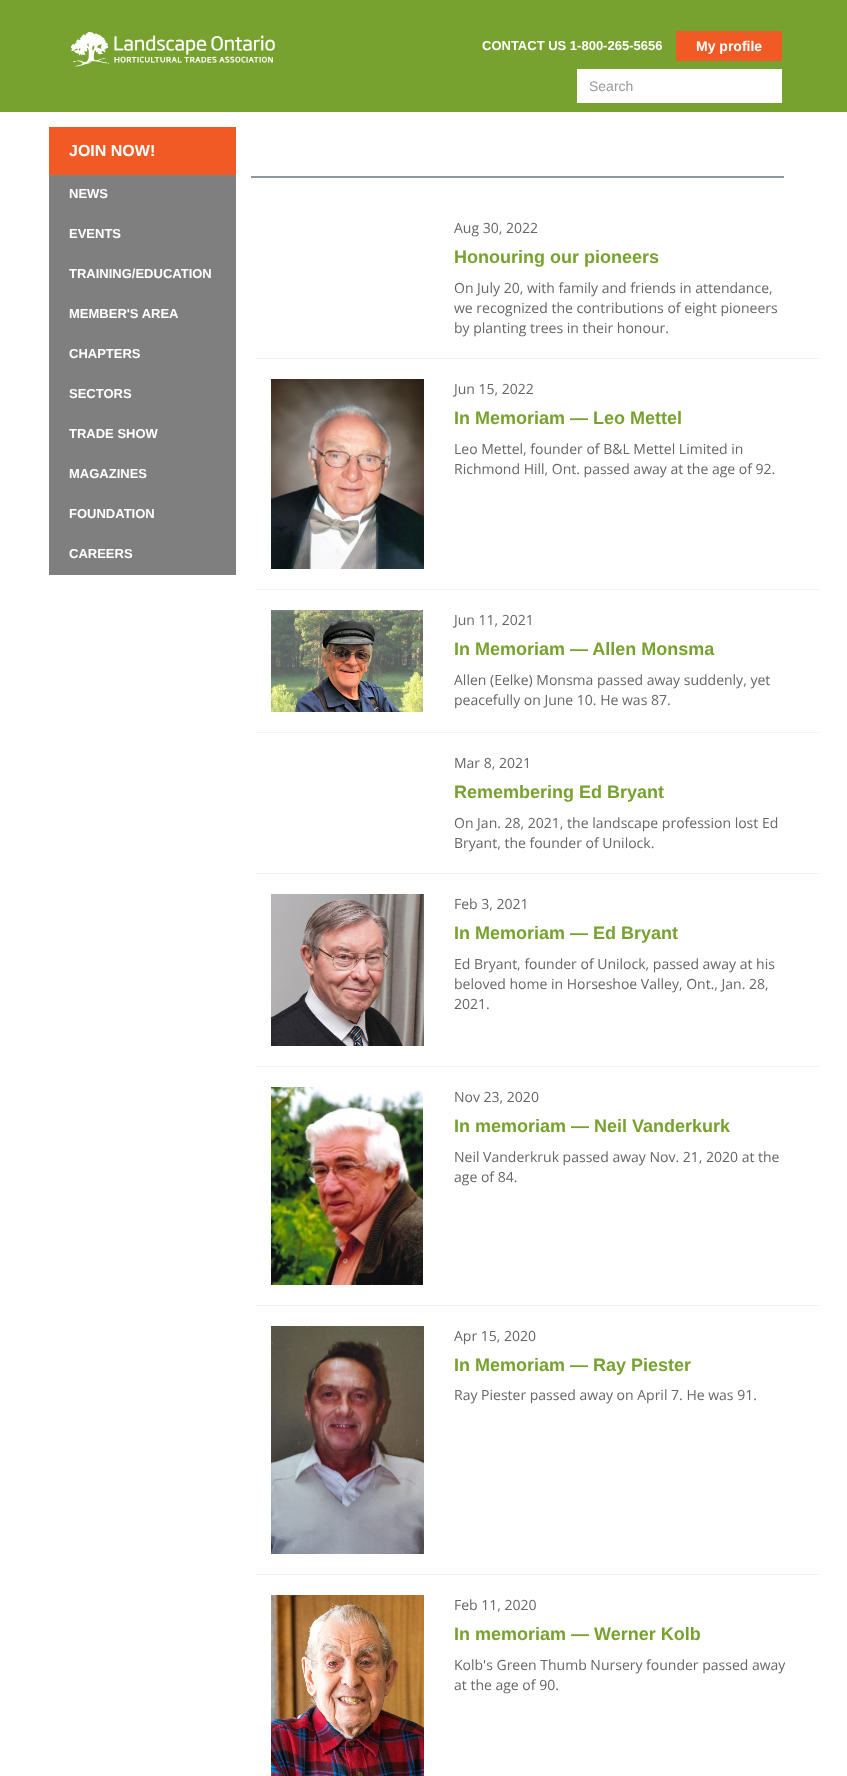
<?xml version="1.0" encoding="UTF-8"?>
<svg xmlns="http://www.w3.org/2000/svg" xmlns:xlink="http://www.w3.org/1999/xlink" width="847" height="1776">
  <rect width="100%" height="100%" fill="#ffffff" />
  <rect width="847" height="112" fill="#78a22f" />
  <image x="70" y="32" width="205" height="35" xlink:href="image1.png" />
  <rect x="676" y="31" width="106" height="30" fill="#f15a24" />
  <rect x="577" y="69" width="205" height="34" fill="#ffffff" />
  <rect x="49" y="127" width="187" height="48" fill="#f15a24" />
  <rect x="49" y="175" width="187" height="400" fill="#7f7f7f" />
  <rect x="251" y="176" width="533" height="2" fill="#8c989d" />
  <rect x="256" y="358" width="563" height="1" fill="#f2f2f2" />
  <rect x="256" y="589" width="563" height="1" fill="#f2f2f2" />
  <image x="271" y="379" width="153" height="190" xlink:href="image2.png" />
  <rect x="256" y="732" width="563" height="1" fill="#f2f2f2" />
  <image x="271" y="610" width="152" height="102" xlink:href="image3.png" />
  <rect x="256" y="873" width="563" height="1" fill="#f2f2f2" />
  <rect x="256" y="1066" width="563" height="1" fill="#f2f2f2" />
  <image x="271" y="894" width="153" height="152" xlink:href="image4.png" />
  <rect x="256" y="1305" width="563" height="1" fill="#f2f2f2" />
  <image x="271" y="1087" width="152" height="198" xlink:href="image5.png" />
  <rect x="256" y="1574" width="563" height="1" fill="#f2f2f2" />
  <image x="271" y="1326" width="153" height="228" xlink:href="image6.png" />
  <image x="271" y="1595" width="153" height="181" xlink:href="image7.png" />
  <text x="482" y="50" style="font-family: Liberation Sans; font-size: 13px; font-weight: bold; fill: #ffffff">CONTACT US 1-800-265-5656</text>
  <text x="696" y="51" style="font-family: Liberation Sans; font-size: 14px; font-weight: bold; fill: #ffffff">My profile</text>
  <text x="589" y="91" style="font-family: Liberation Sans; font-size: 14px; fill: #999999">Search</text>
  <text x="69" y="156" style="font-family: Liberation Sans; font-size: 16px; font-weight: bold; fill: #ffffff">JOIN NOW!</text>
  <text x="69" y="198" style="font-family: Liberation Sans; font-size: 13px; font-weight: bold; fill: #ffffff">NEWS</text>
  <text x="69" y="238" style="font-family: Liberation Sans; font-size: 13px; font-weight: bold; fill: #ffffff">EVENTS</text>
  <text x="69" y="278" style="font-family: Liberation Sans; font-size: 13px; font-weight: bold; fill: #ffffff">TRAINING/EDUCATION</text>
  <text x="69" y="318" style="font-family: Liberation Sans; font-size: 13px; font-weight: bold; fill: #ffffff">MEMBER'S AREA</text>
  <text x="69" y="358" style="font-family: Liberation Sans; font-size: 13px; font-weight: bold; fill: #ffffff">CHAPTERS</text>
  <text x="69" y="398" style="font-family: Liberation Sans; font-size: 13px; font-weight: bold; fill: #ffffff">SECTORS</text>
  <text x="69" y="438" style="font-family: Liberation Sans; font-size: 13px; font-weight: bold; fill: #ffffff">TRADE SHOW</text>
  <text x="69" y="478" style="font-family: Liberation Sans; font-size: 13px; font-weight: bold; fill: #ffffff">MAGAZINES</text>
  <text x="69" y="518" style="font-family: Liberation Sans; font-size: 13px; font-weight: bold; fill: #ffffff">FOUNDATION</text>
  <text x="69" y="558" style="font-family: Liberation Sans; font-size: 13px; font-weight: bold; fill: #ffffff">CAREERS</text>
  <text x="454" y="233" style="font-family: Open Sans; font-size: 14px; fill: #666666">Aug 30, 2022</text>
  <text x="454" y="263" style="font-family: Liberation Sans; font-size: 18px; font-weight: bold; fill: #78a22f">Honouring our pioneers</text>
  <text x="454" y="293" style="font-family: Open Sans; font-size: 14px; fill: #666666">On July 20, with family and friends in attendance,</text>
  <text x="454" y="313" style="font-family: Open Sans; font-size: 14px; fill: #666666">we recognized the contributions of eight pioneers</text>
  <text x="454" y="333" style="font-family: Open Sans; font-size: 14px; fill: #666666">by planting trees in their honour.</text>
  <text x="454" y="394" style="font-family: Open Sans; font-size: 14px; fill: #666666">Jun 15, 2022</text>
  <text x="454" y="424" style="font-family: Liberation Sans; font-size: 18px; font-weight: bold; fill: #78a22f">In Memoriam — Leo Mettel</text>
  <text x="454" y="454" style="font-family: Open Sans; font-size: 14px; fill: #666666">Leo Mettel, founder of B&amp;L Mettel Limited in</text>
  <text x="454" y="474" style="font-family: Open Sans; font-size: 14px; fill: #666666">Richmond Hill, Ont. passed away at the age of 92.</text>
  <text x="454" y="625" style="font-family: Open Sans; font-size: 14px; fill: #666666">Jun 11, 2021</text>
  <text x="454" y="655" style="font-family: Liberation Sans; font-size: 18px; font-weight: bold; fill: #78a22f">In Memoriam — Allen Monsma</text>
  <text x="454" y="685" style="font-family: Open Sans; font-size: 14px; fill: #666666">Allen (Eelke) Monsma passed away suddenly, yet</text>
  <text x="454" y="705" style="font-family: Open Sans; font-size: 14px; fill: #666666">peacefully on June 10. He was 87.</text>
  <text x="454" y="768" style="font-family: Open Sans; font-size: 14px; fill: #666666">Mar 8, 2021</text>
  <text x="454" y="798" style="font-family: Liberation Sans; font-size: 18px; font-weight: bold; fill: #78a22f">Remembering Ed Bryant</text>
  <text x="454" y="828" style="font-family: Open Sans; font-size: 14px; fill: #666666">On Jan. 28, 2021, the landscape profession lost Ed</text>
  <text x="454" y="848" style="font-family: Open Sans; font-size: 14px; fill: #666666">Bryant, the founder of Unilock.</text>
  <text x="454" y="909" style="font-family: Open Sans; font-size: 14px; fill: #666666">Feb 3, 2021</text>
  <text x="454" y="939" style="font-family: Liberation Sans; font-size: 18px; font-weight: bold; fill: #78a22f">In Memoriam — Ed Bryant</text>
  <text x="454" y="969" style="font-family: Open Sans; font-size: 14px; fill: #666666">Ed Bryant, founder of Unilock, passed away at his</text>
  <text x="454" y="989" style="font-family: Open Sans; font-size: 14px; fill: #666666">beloved home in Horseshoe Valley, Ont., Jan. 28,</text>
  <text x="454" y="1009" style="font-family: Open Sans; font-size: 14px; fill: #666666">2021.</text>
  <text x="454" y="1102" style="font-family: Open Sans; font-size: 14px; fill: #666666">Nov 23, 2020</text>
  <text x="454" y="1132" style="font-family: Liberation Sans; font-size: 18px; font-weight: bold; fill: #78a22f">In memoriam — Neil Vanderkurk</text>
  <text x="454" y="1162" style="font-family: Open Sans; font-size: 14px; fill: #666666">Neil Vanderkruk passed away Nov. 21, 2020 at the</text>
  <text x="454" y="1182" style="font-family: Open Sans; font-size: 14px; fill: #666666">age of 84.</text>
  <text x="454" y="1341" style="font-family: Open Sans; font-size: 14px; fill: #666666">Apr 15, 2020</text>
  <text x="454" y="1371" style="font-family: Liberation Sans; font-size: 18px; font-weight: bold; fill: #78a22f">In Memoriam — Ray Piester</text>
  <text x="454" y="1400" style="font-family: Open Sans; font-size: 14px; fill: #666666">Ray Piester passed away on April 7. He was 91.</text>
  <text x="454" y="1610" style="font-family: Open Sans; font-size: 14px; fill: #666666">Feb 11, 2020</text>
  <text x="454" y="1640" style="font-family: Liberation Sans; font-size: 18px; font-weight: bold; fill: #78a22f">In memoriam — Werner Kolb</text>
  <text x="454" y="1670" style="font-family: Open Sans; font-size: 14px; fill: #666666">Kolb's Green Thumb Nursery founder passed away</text>
  <text x="454" y="1690" style="font-family: Open Sans; font-size: 14px; fill: #666666">at the age of 90.</text>
</svg>
